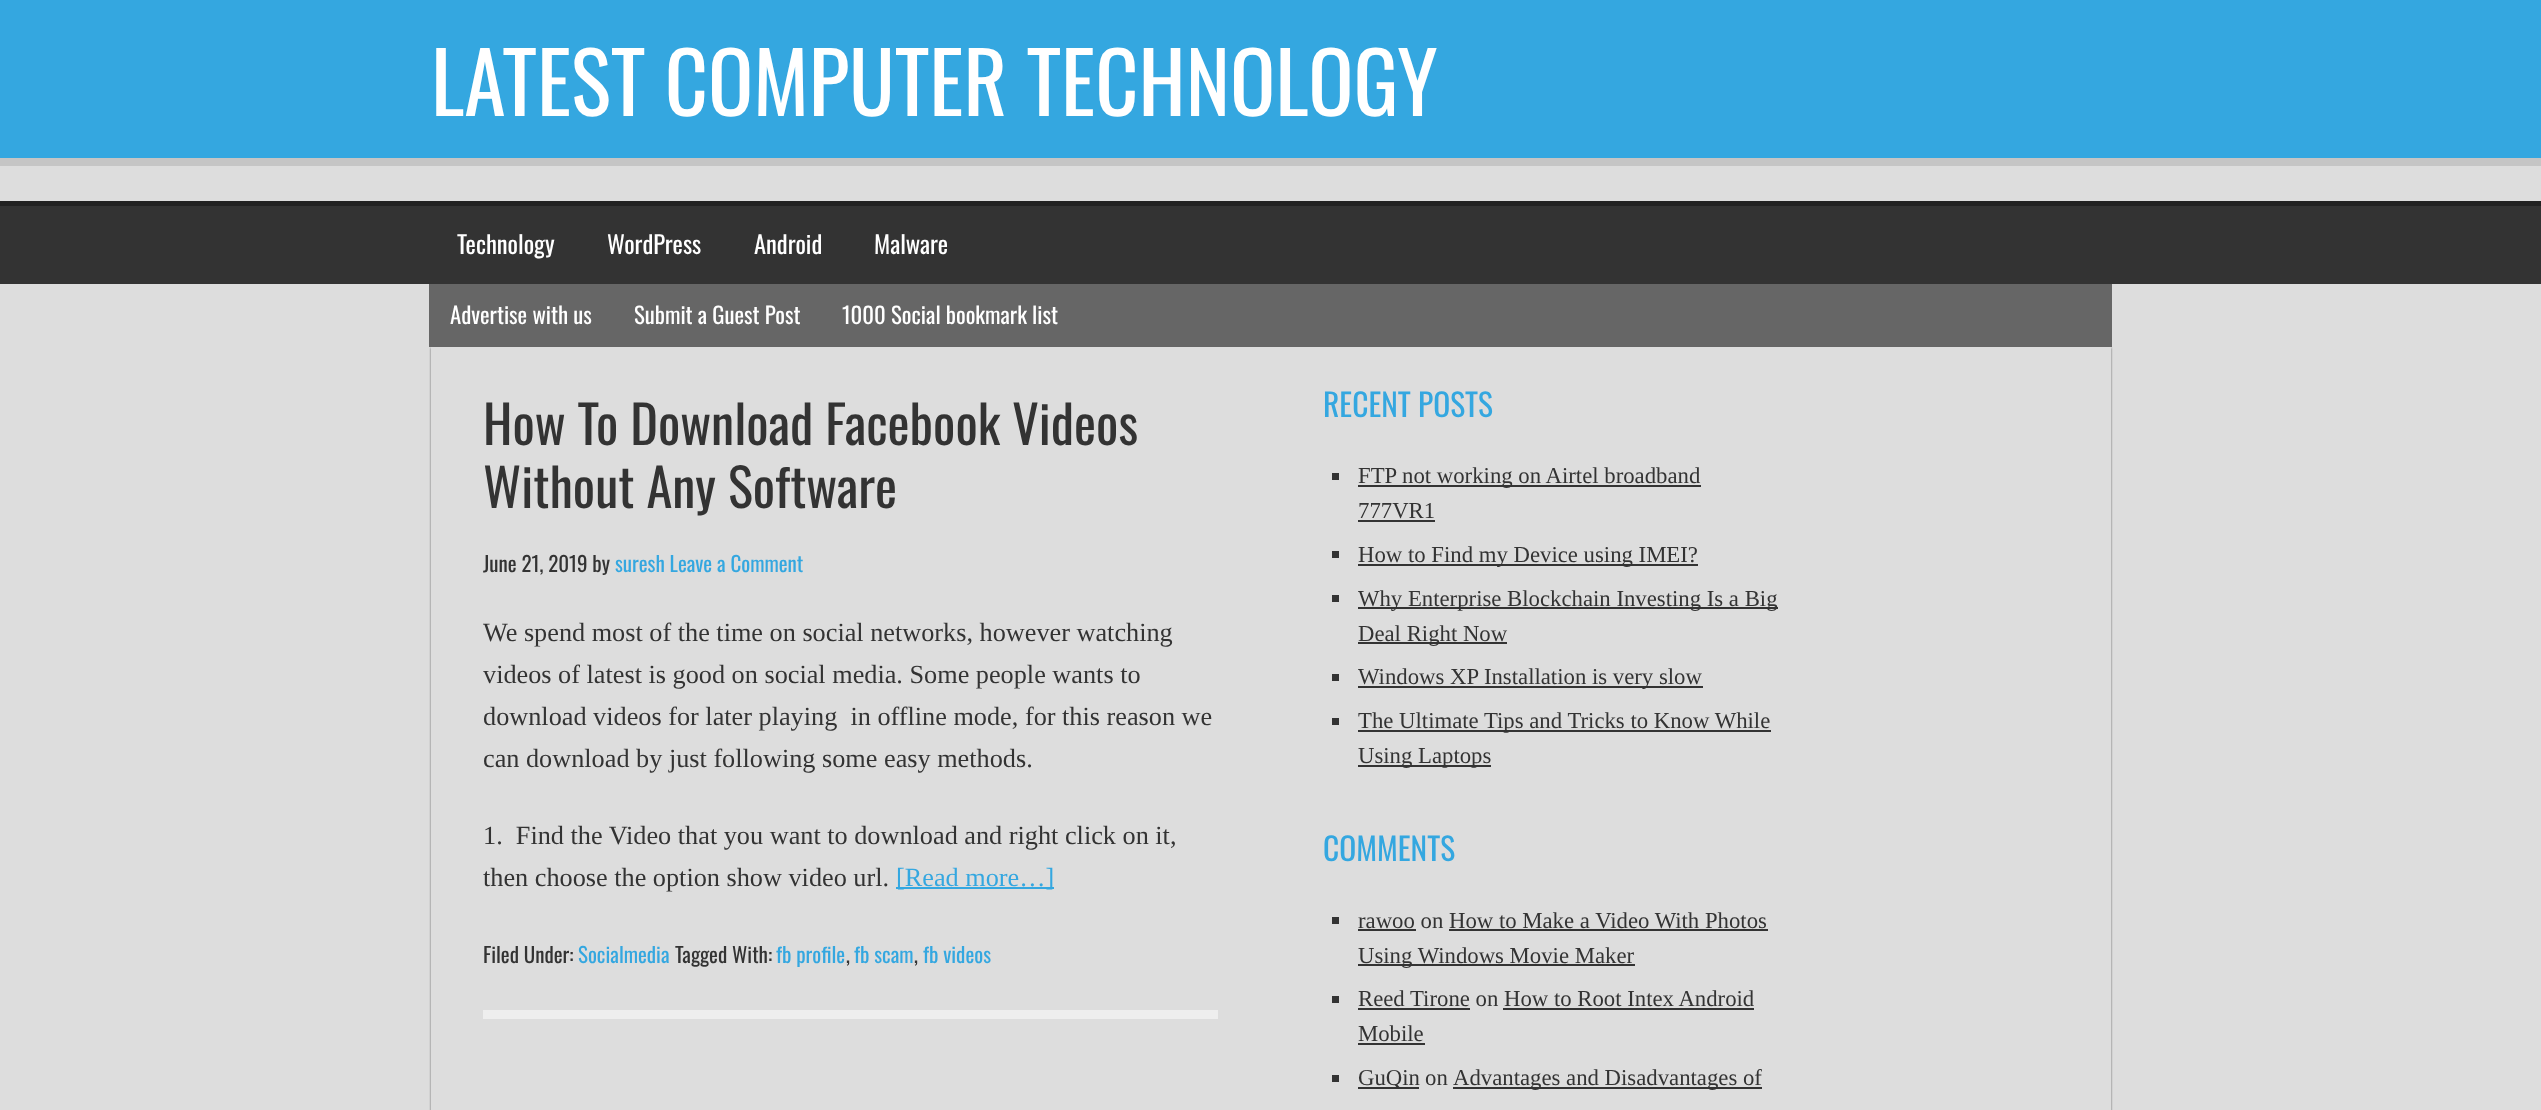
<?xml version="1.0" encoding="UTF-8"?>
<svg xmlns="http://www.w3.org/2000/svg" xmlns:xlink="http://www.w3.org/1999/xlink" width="2541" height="1110">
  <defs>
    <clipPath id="clip1"><path d="M 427 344 h 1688 v 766 h -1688 z m 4 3 h 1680 v 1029 h -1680 z" clip-rule="evenodd" /></clipPath>
  </defs>
  <rect width="100%" height="100%" fill="#dddddd" />
  <rect width="2541" height="158" fill="#34a7e0" />
  <rect y="158" width="2541" height="8" fill="#c5c5c5" />
  <rect y="206" width="2541" height="78" fill="#333333" />
  <rect y="201" width="2541" height="5" fill="#222222" />
  <rect x="429" y="284" width="1683" height="63" fill="#666666" />
  <g clip-path="url(#clip1)">
    <rect x="431" y="348" width="1680" height="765" fill="#666666" filter="blur(1px)" />
  </g>
  <rect x="483" y="1010" width="735" height="9" fill="#eeeeee" />
  <rect x="896" y="887" width="158" height="2" fill="#34a7e0" />
  <rect x="1332" y="473" width="7" height="7" fill="#333333" />
  <rect x="1358" y="485" width="343" height="2" fill="#333333" />
  <rect x="1358" y="520" width="77" height="2" fill="#333333" />
  <rect x="1332" y="551" width="7" height="7" fill="#333333" />
  <rect x="1358" y="564" width="340" height="2" fill="#333333" />
  <rect x="1332" y="595" width="7" height="7" fill="#333333" />
  <rect x="1358" y="607" width="420" height="2" fill="#333333" />
  <rect x="1358" y="642" width="149" height="2" fill="#333333" />
  <rect x="1332" y="674" width="7" height="7" fill="#333333" />
  <rect x="1358" y="686" width="345" height="2" fill="#333333" />
  <rect x="1332" y="718" width="7" height="7" fill="#333333" />
  <rect x="1358" y="730" width="413" height="2" fill="#333333" />
  <rect x="1358" y="765" width="133" height="2" fill="#333333" />
  <rect x="1332" y="917" width="7" height="7" fill="#333333" />
  <rect x="1358" y="929" width="58" height="2" fill="#333333" />
  <rect x="1449" y="929" width="319" height="2" fill="#333333" />
  <rect x="1358" y="964" width="277" height="2" fill="#333333" />
  <rect x="1332" y="996" width="7" height="7" fill="#333333" />
  <rect x="1358" y="1008" width="112" height="2" fill="#333333" />
  <rect x="1503" y="1008" width="251" height="2" fill="#333333" />
  <rect x="1358" y="1043" width="67" height="2" fill="#333333" />
  <rect x="1332" y="1075" width="7" height="7" fill="#333333" />
  <rect x="1358" y="1087" width="61" height="2" fill="#333333" />
  <rect x="1453" y="1087" width="309" height="2" fill="#333333" />
  <text x="431" y="116" style="font-family: Oswald; font-size: 84px; fill: #ffffff">LATEST COMPUTER TECHNOLOGY</text>
  <text x="457" y="254" style="font-family: Oswald; font-size: 24.5px; fill: #ffffff">Technology</text>
  <text x="607" y="254" style="font-family: Oswald; font-size: 24.5px; fill: #ffffff">WordPress</text>
  <text x="754" y="254" style="font-family: Oswald; font-size: 24.5px; fill: #ffffff">Android</text>
  <text x="874" y="254" style="font-family: Oswald; font-size: 24.5px; fill: #ffffff">Malware</text>
  <text x="450" y="324" style="font-family: Oswald; font-size: 22.75px; fill: #ffffff">Advertise with us</text>
  <text x="634" y="324" style="font-family: Oswald; font-size: 22.75px; fill: #ffffff">Submit a Guest Post</text>
  <text x="842" y="324" style="font-family: Oswald; font-size: 22.75px; fill: #ffffff">1000 Social bookmark list</text>
  <text x="483" y="445" style="font-family: Oswald; font-size: 52.5px; fill: #333333">How To Download Facebook Videos</text>
  <text x="483" y="508" style="font-family: Oswald; font-size: 52.5px; fill: #333333">Without Any Software</text>
  <text x="483" y="572" style="font-family: Oswald; font-size: 21px; fill: #333333">June 21, 2019 by</text>
  <text x="615" y="572" style="font-family: Oswald; font-size: 21px; fill: #34a7e0">suresh Leave a Comment</text>
  <text x="483" y="641" style="font-family: Liberation Serif; font-size: 26.25px; fill: #333333">We spend most of the time on social networks, however watching</text>
  <text x="483" y="683" style="font-family: Liberation Serif; font-size: 26.25px; fill: #333333">videos of latest is good on social media. Some people wants to</text>
  <text x="483" y="725" style="font-family: Liberation Serif; font-size: 26.25px; fill: #333333" xml:space="preserve">download videos for later playing  in offline mode, for this reason we</text>
  <text x="483" y="767" style="font-family: Liberation Serif; font-size: 26.25px; fill: #333333">can download by just following some easy methods.</text>
  <text x="483" y="844" style="font-family: Liberation Serif; font-size: 26.25px; fill: #333333" xml:space="preserve">1.  Find the Video that you want to download and right click on it,</text>
  <text x="483" y="886" style="font-family: Liberation Serif; font-size: 26.25px; fill: #333333">then choose the option show video url.</text>
  <text x="896" y="886" style="font-family: Liberation Serif; font-size: 26.25px; fill: #34a7e0">[Read more…]</text>
  <text x="483" y="963" style="font-family: Oswald; font-size: 21px; fill: #333333">Filed Under:</text>
  <text x="578" y="963" style="font-family: Oswald; font-size: 21px; fill: #34a7e0">Socialmedia</text>
  <text x="675" y="963" style="font-family: Oswald; font-size: 21px; fill: #333333">Tagged With:</text>
  <text x="776" y="963" style="font-family: Oswald; font-size: 21px; fill: #34a7e0">fb profile</text>
  <text x="846" y="963" style="font-family: Oswald; font-size: 21px; fill: #333333">,</text>
  <text x="854" y="963" style="font-family: Oswald; font-size: 21px; fill: #34a7e0">fb scam</text>
  <text x="914" y="963" style="font-family: Oswald; font-size: 21px; fill: #333333">,</text>
  <text x="923" y="963" style="font-family: Oswald; font-size: 21px; fill: #34a7e0">fb videos</text>
  <text x="1323" y="417" style="font-family: Oswald; font-size: 31.5px; fill: #34a7e0">RECENT POSTS</text>
  <text x="1358" y="483" style="font-family: Liberation Serif; font-size: 22.75px; fill: #333333">FTP not working on Airtel broadband</text>
  <text x="1358" y="518" style="font-family: Liberation Serif; font-size: 22.75px; fill: #333333">777VR1</text>
  <text x="1358" y="562" style="font-family: Liberation Serif; font-size: 22.75px; fill: #333333">How to Find my Device using IMEI?</text>
  <text x="1358" y="606" style="font-family: Liberation Serif; font-size: 22.75px; fill: #333333">Why Enterprise Blockchain Investing Is a Big</text>
  <text x="1358" y="641" style="font-family: Liberation Serif; font-size: 22.75px; fill: #333333">Deal Right Now</text>
  <text x="1358" y="684" style="font-family: Liberation Serif; font-size: 22.75px; fill: #333333">Windows XP Installation is very slow</text>
  <text x="1358" y="728" style="font-family: Liberation Serif; font-size: 22.75px; fill: #333333">The Ultimate Tips and Tricks to Know While</text>
  <text x="1358" y="763" style="font-family: Liberation Serif; font-size: 22.75px; fill: #333333">Using Laptops</text>
  <text x="1323" y="861" style="font-family: Oswald; font-size: 31.5px; fill: #34a7e0">COMMENTS</text>
  <text x="1358" y="928" style="font-family: Liberation Serif; font-size: 22.75px; fill: #333333">rawoo on How to Make a Video With Photos</text>
  <text x="1358" y="963" style="font-family: Liberation Serif; font-size: 22.75px; fill: #333333">Using Windows Movie Maker</text>
  <text x="1358" y="1006" style="font-family: Liberation Serif; font-size: 22.75px; fill: #333333">Reed Tirone on How to Root Intex Android</text>
  <text x="1358" y="1041" style="font-family: Liberation Serif; font-size: 22.75px; fill: #333333">Mobile</text>
  <text x="1358" y="1085" style="font-family: Liberation Serif; font-size: 22.75px; fill: #333333">GuQin</text>
  <text x="1425" y="1085" style="font-family: Liberation Serif; font-size: 22.75px; fill: #333333">on</text>
  <text x="1453" y="1085" style="font-family: Liberation Serif; font-size: 22.75px; fill: #333333">Advantages and Disadvantages of</text>
</svg>
